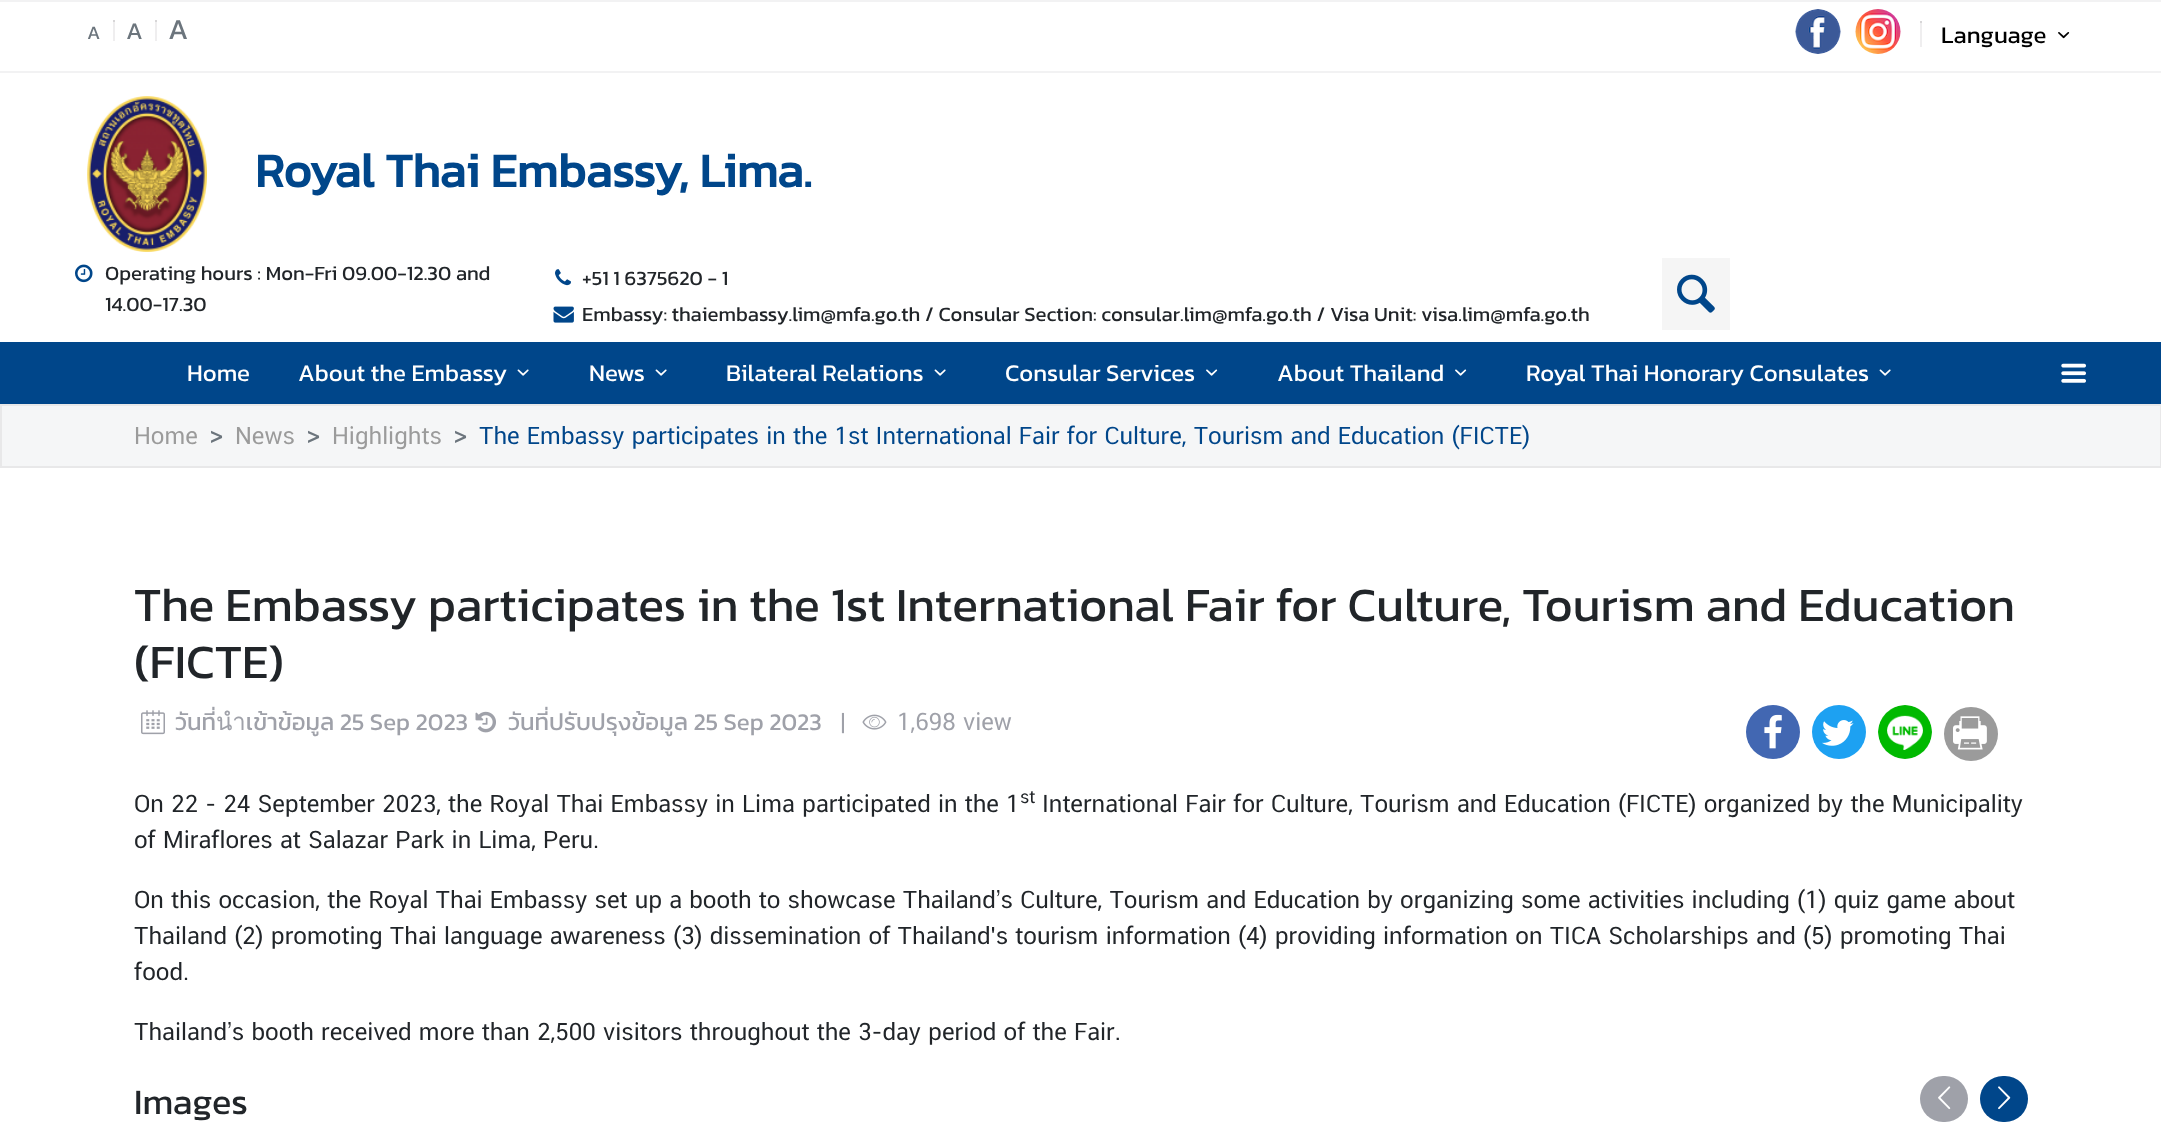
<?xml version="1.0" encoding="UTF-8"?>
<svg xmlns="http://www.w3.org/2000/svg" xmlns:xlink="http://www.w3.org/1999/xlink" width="2161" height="1134">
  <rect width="100%" height="100%" fill="#ffffff" />
  <rect width="2161" height="2" fill="#f2f2f3" />
  <rect y="71" width="2161" height="2" fill="#f2f2f3" />
  <rect x="113" y="20" width="2" height="21" fill="#efeeef" />
  <rect x="113" y="20" width="2" height="2" fill="#d7d6d7" />
  <rect x="155" y="20" width="2" height="21" fill="#efeeef" />
  <rect x="155" y="20" width="2" height="2" fill="#d7d6d7" />
  <image x="1795" y="9" width="46" height="45" xlink:href="image1.png" />
  <image x="1855" y="9" width="46" height="45" xlink:href="image2.png" />
  <rect x="1920" y="21" width="2" height="26" fill="#efeeef" />
  <rect x="1920" y="21" width="2" height="2" fill="#d7d6d7" />
  <image x="2058" y="32" width="12" height="7" xlink:href="image3.png" />
  <image x="87" y="96" width="120" height="156" xlink:href="image4.png" />
  <image x="75" y="264" width="18" height="19" xlink:href="image5.png" />
  <image x="555" y="269" width="16" height="17" xlink:href="image6.png" />
  <image x="553" y="306" width="21" height="17" xlink:href="image7.png" />
  <rect x="1662" y="258" width="68" height="72" fill="#f5f5f5" />
  <image x="1677" y="274" width="38" height="39" xlink:href="image8.png" />
  <rect y="342" width="2161" height="62" fill="#00468a" />
  <image x="517" y="369" width="12" height="7" xlink:href="image9.png" />
  <image x="655" y="369" width="12" height="7" xlink:href="image9.png" />
  <image x="934" y="369" width="12" height="7" xlink:href="image9.png" />
  <image x="1206" y="369" width="12" height="7" xlink:href="image10.png" />
  <image x="1455" y="369" width="12" height="7" xlink:href="image10.png" />
  <image x="1879" y="369" width="12" height="7" xlink:href="image9.png" />
  <image x="2061" y="363" width="25" height="20" xlink:href="image11.png" />
  <rect x="1" y="405" width="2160" height="62" fill="#f5f6f7" stroke="#e8e8e9" stroke-width="2" />
  <image x="141" y="710" width="24" height="25" xlink:href="image12.png" />
  <image x="475" y="711" width="21" height="22" xlink:href="image13.png" />
  <image x="862" y="714" width="25" height="16" xlink:href="image14.png" />
  <circle cx="1773" cy="732" r="27" fill="#4267b2" />
  <image x="1764" y="714" width="18" height="35" xlink:href="image15.png" />
  <circle cx="1839" cy="732" r="27" fill="#1da1f2" />
  <image x="1822" y="720" width="32" height="26" xlink:href="image16.png" />
  <circle cx="1905" cy="732" r="27" fill="#efefef" />
  <image x="1878" y="705" width="54" height="54" xlink:href="image17.png" />
  <circle cx="1971" cy="734" r="27" fill="#9b9b9b" />
  <image x="1953" y="716" width="34" height="34" xlink:href="image18.png" />
  <rect x="1920" y="1076" width="48" height="46" rx="23" fill="#9fa1a9" />
  <image x="1938" y="1086" width="13" height="24" xlink:href="image19.png" />
  <rect x="1980" y="1076" width="48" height="46" rx="23" fill="#00468a" />
  <image x="1998" y="1086" width="13" height="24" xlink:href="image20.png" />
  <text x="87" y="39" style="font-family: Kanit; font-size: 19px; fill: #6c757d">A</text>
  <text x="126" y="39" style="font-family: Kanit; font-size: 24px; fill: #6c757d">A</text>
  <text x="168" y="39" style="font-family: Kanit; font-size: 29px; fill: #6c757d">A</text>
  <text x="1941" y="43" style="font-family: Kanit; font-size: 24px; fill: #000000">Language</text>
  <text x="255" y="187" style="font-family: Kanit; font-size: 48px; font-weight: bold; fill: #00468a">Royal Thai Embassy, Lima.</text>
  <text x="105" y="280" style="font-family: Kanit; font-size: 20.4px; fill: #212529">Operating hours : Mon-Fri 09.00-12.30 and</text>
  <text x="105" y="311" style="font-family: Kanit; font-size: 20.4px; fill: #212529">14.00-17.30</text>
  <text x="582" y="285" style="font-family: Kanit; font-size: 20.4px; fill: #212529">+51 1 6375620 - 1</text>
  <text x="582" y="321" style="font-family: Kanit; font-size: 20.4px; fill: #212529">Embassy: thaiembassy.lim@mfa.go.th / Consular Section: consular.lim@mfa.go.th / Visa Unit: visa.lim@mfa.go.th</text>
  <text x="187" y="381" style="font-family: Kanit; font-size: 24px; fill: #ffffff">Home</text>
  <text x="298" y="381" style="font-family: Kanit; font-size: 24px; fill: #ffffff">About the Embassy</text>
  <text x="589" y="381" style="font-family: Kanit; font-size: 24px; fill: #ffffff">News</text>
  <text x="726" y="381" style="font-family: Kanit; font-size: 24px; fill: #ffffff">Bilateral Relations</text>
  <text x="1005" y="381" style="font-family: Kanit; font-size: 24px; fill: #ffffff">Consular Services</text>
  <text x="1277" y="381" style="font-family: Kanit; font-size: 24px; fill: #ffffff">About Thailand</text>
  <text x="1526" y="381" style="font-family: Kanit; font-size: 24px; fill: #ffffff">Royal Thai Honorary Consulates</text>
  <text x="134" y="444" style="font-family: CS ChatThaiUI; font-size: 24px; fill: #9b9b9b">Home</text>
  <text x="210" y="444" style="font-family: Kanit; font-size: 24px; fill: #6c757d">&gt;</text>
  <text x="235" y="444" style="font-family: CS ChatThaiUI; font-size: 24px; fill: #9b9b9b">News</text>
  <text x="307" y="444" style="font-family: Kanit; font-size: 24px; fill: #6c757d">&gt;</text>
  <text x="332" y="444" style="font-family: CS ChatThaiUI; font-size: 24px; fill: #9b9b9b">Highlights</text>
  <text x="454" y="444" style="font-family: Kanit; font-size: 24px; fill: #6c757d">&gt;</text>
  <text x="479" y="444" style="font-family: CS ChatThaiUI; font-size: 24px; fill: #00468a">The Embassy participates in the 1st International Fair for Culture, Tourism and Education (FICTE)</text>
  <text x="134" y="621" style="font-family: Kanit; font-size: 48px; fill: #212529">The Embassy participates in the 1st International Fair for Culture, Tourism and Education</text>
  <text x="134" y="678" style="font-family: Kanit; font-size: 48px; fill: #212529">(FICTE)</text>
  <text x="175" y="730" style="font-family: Kanit; font-size: 24px; fill: #9fa1a9">วันที่นำเข้าข้อมูล 25 Sep 2023</text>
  <text x="508" y="730" style="font-family: Kanit; font-size: 24px; fill: #9fa1a9">วันที่ปรับปรุงข้อมูล 25 Sep 2023</text>
  <text x="840" y="730" style="font-family: CS ChatThaiUI; font-size: 24px; fill: #9fa1a9">|</text>
  <text x="897" y="730" style="font-family: CS ChatThaiUI; font-size: 24px; fill: #9fa1a9">1,698 view</text>
  <text x="134" y="812" style="font-family: CS ChatThaiUI; font-size: 24px; fill: #212529">On 22 - 24 September 2023, the Royal Thai Embassy in Lima participated in the 1</text>
  <text x="1020" y="803" style="font-family: CS ChatThaiUI; font-size: 18px; fill: #212529">st</text>
  <text x="1042" y="812" style="font-family: CS ChatThaiUI; font-size: 24px; fill: #212529">International Fair for Culture, Tourism and Education (FICTE) organized by the Municipality</text>
  <text x="134" y="848" style="font-family: CS ChatThaiUI; font-size: 24px; fill: #212529">of Miraflores at Salazar Park in Lima, Peru.</text>
  <text x="134" y="908" style="font-family: CS ChatThaiUI; font-size: 24px; fill: #212529">On this occasion, the Royal Thai Embassy set up a booth to showcase Thailand’s Culture, Tourism and Education by organizing some activities including (1) quiz game about</text>
  <text x="134" y="944" style="font-family: CS ChatThaiUI; font-size: 24px; fill: #212529">Thailand (2) promoting Thai language awareness (3) dissemination of Thailand's tourism information (4) providing information on TICA Scholarships and (5) promoting Thai</text>
  <text x="134" y="980" style="font-family: CS ChatThaiUI; font-size: 24px; fill: #212529">food.</text>
  <text x="134" y="1040" style="font-family: CS ChatThaiUI; font-size: 24px; fill: #212529">Thailand’s booth received more than 2,500 visitors throughout the 3-day period of the Fair.</text>
  <text x="134" y="1114" style="font-family: Kanit; font-size: 36px; fill: #212529">Images</text>
</svg>
